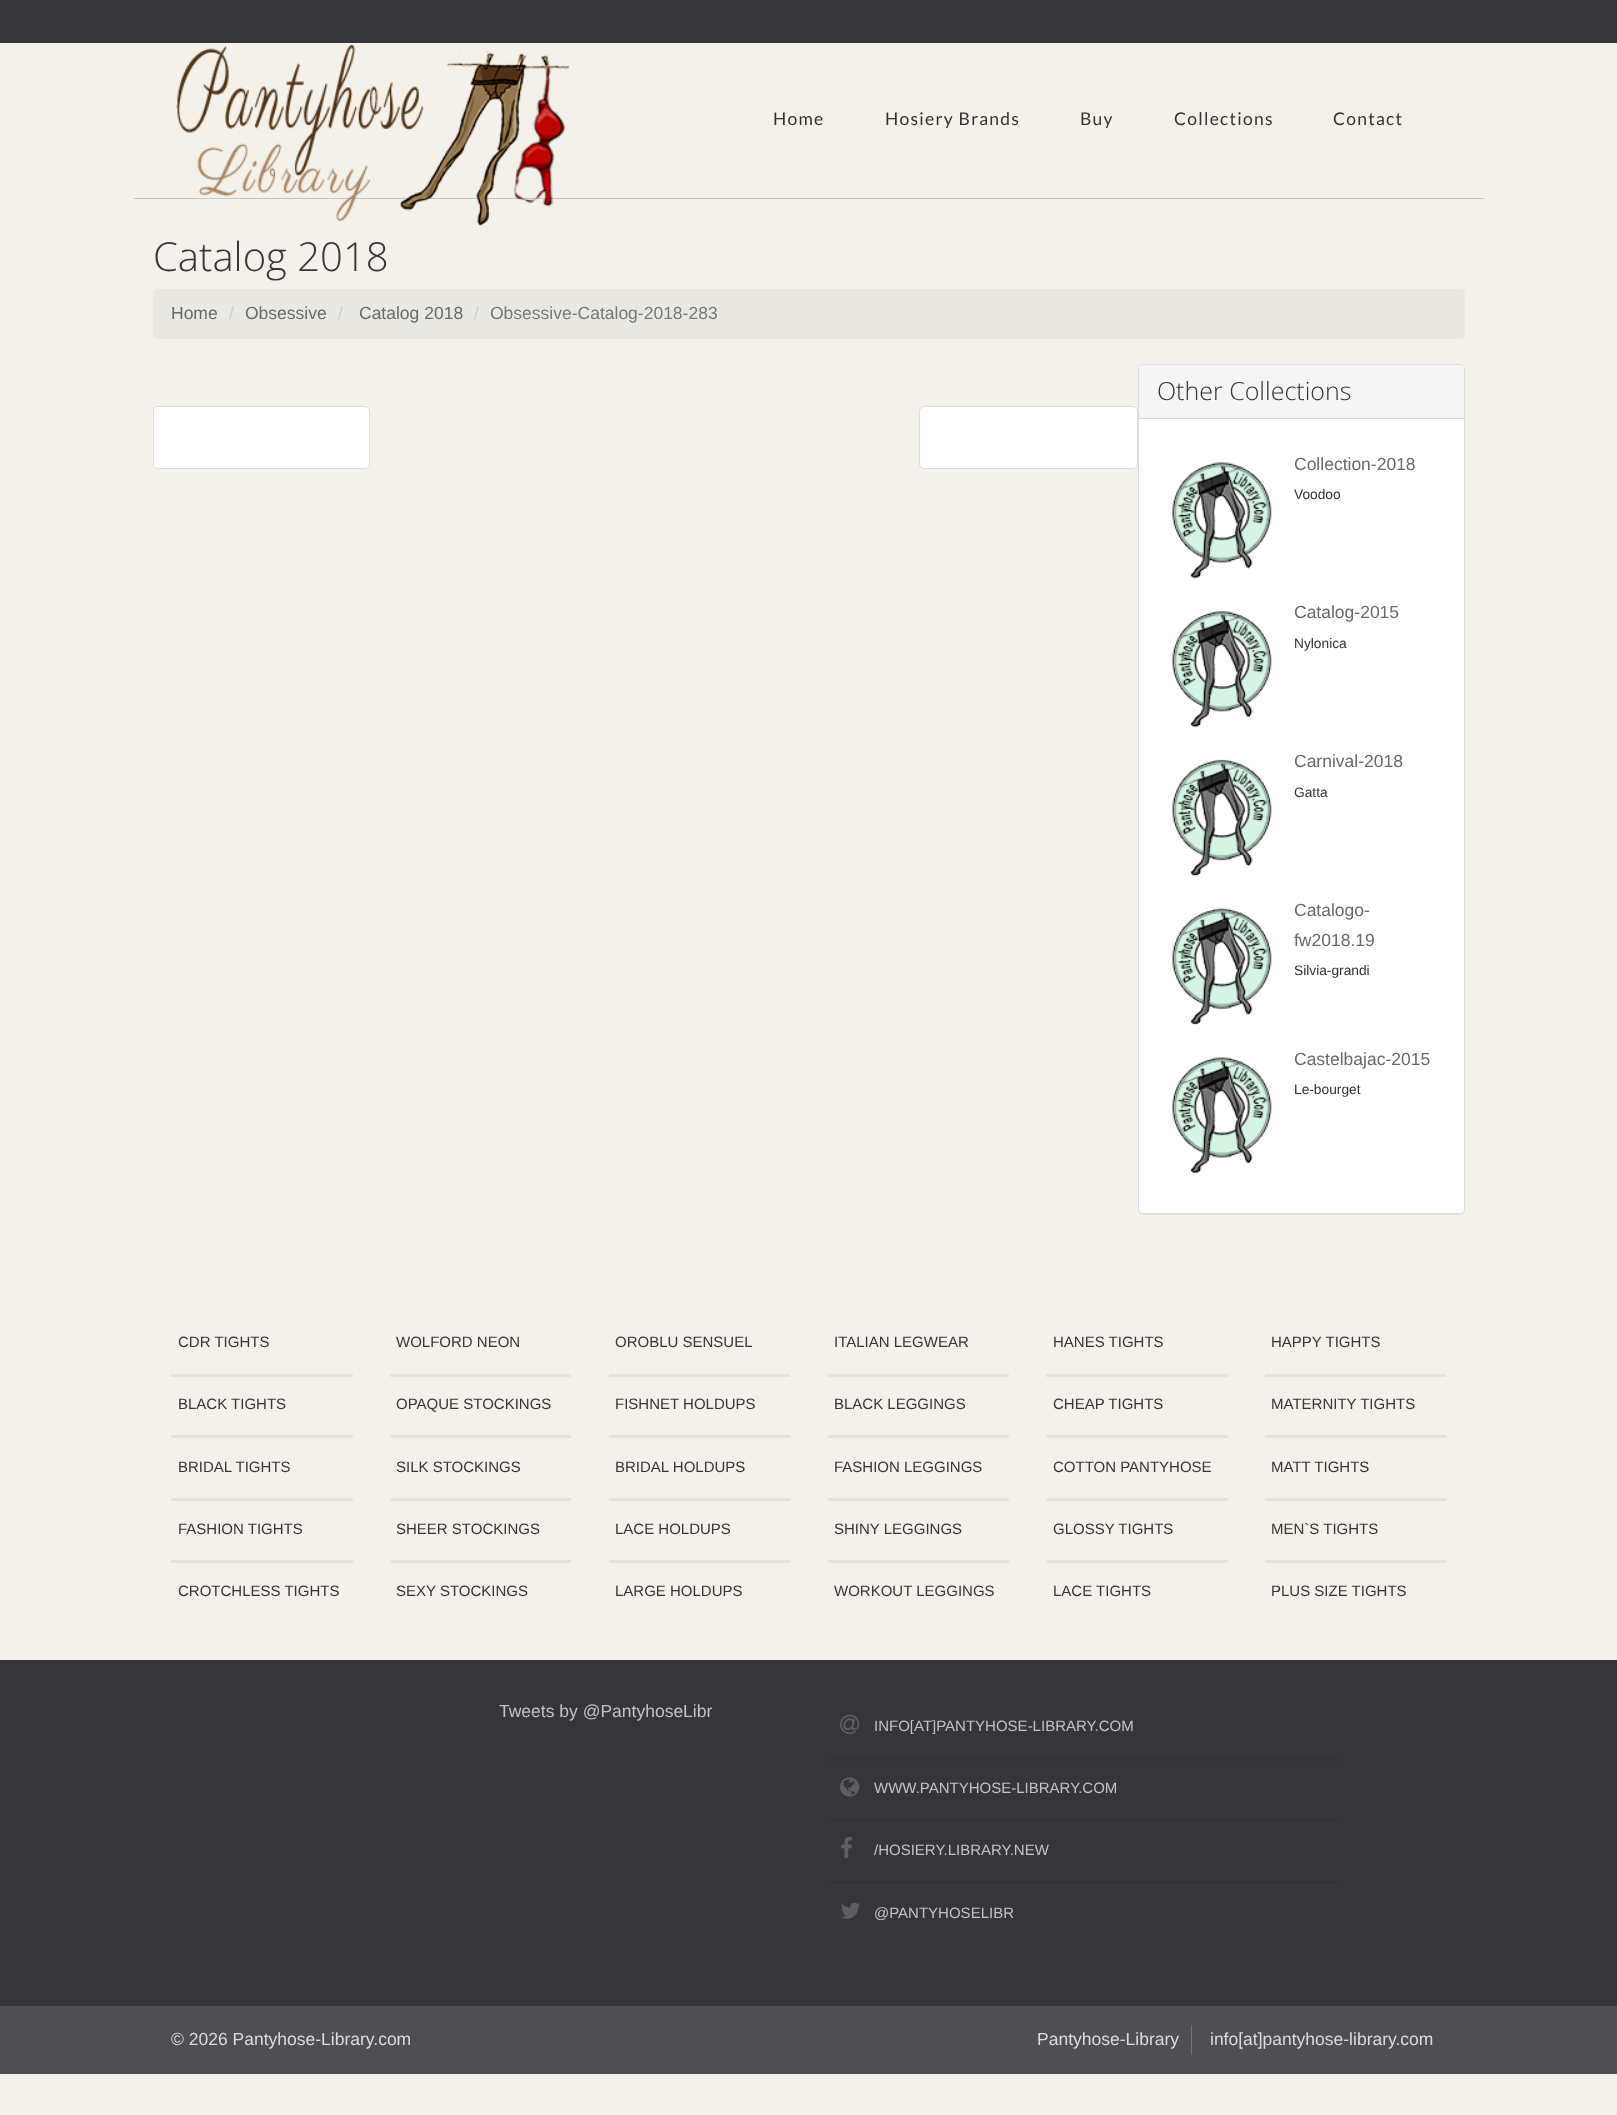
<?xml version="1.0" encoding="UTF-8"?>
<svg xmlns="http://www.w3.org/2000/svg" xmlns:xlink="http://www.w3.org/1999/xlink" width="1617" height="2115">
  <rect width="100%" height="100%" fill="#f4f1ea" />
  <rect width="1617" height="43" fill="#363539" />
  <rect x="134" y="198" width="1350" height="1" fill="#c7c5c1" />
  <image x="176" y="44" width="393" height="183" xlink:href="image1.png" />
  <rect x="153" y="289" width="1312" height="50" rx="5" fill="#eae8e2" />
  <rect x="153.5" y="406.5" width="216" height="62" rx="4.5" fill="#ffffff" stroke="#dddddd" />
  <rect x="919.5" y="406.5" width="218" height="62" rx="4.5" fill="#ffffff" stroke="#dddddd" />
  <rect x="1138" y="365" width="327" height="850" rx="5" fill="#000000" fill-opacity="0.05" filter="blur(0.5px)" />
  <rect x="1138.5" y="364.5" width="326" height="849" rx="4.5" fill="#ffffff" stroke="#dddddd" />
  <path d="M 1143 365 h 317 c 2 0 4 2 4 4 v 50 h -325 v -50 c 0 -2 2 -4 4 -4 z" fill="#f5f5f5" />
  <rect x="1139" y="418" width="325" height="1" fill="#dddddd" />
  <image x="1171" y="462" width="101" height="117" xlink:href="image2.png" />
  <image x="1172" y="611" width="100" height="117" xlink:href="image3.png" />
  <image x="1172" y="759" width="100" height="118" xlink:href="image4.png" />
  <image x="1171" y="908" width="101" height="117" xlink:href="image5.png" />
  <image x="1171" y="1057" width="101" height="117" xlink:href="image2.png" />
  <rect x="171" y="1374" width="182" height="3" fill="#e5e3dc" />
  <rect x="171" y="1435" width="182" height="3" fill="#e5e3dc" />
  <rect x="171" y="1498" width="182" height="3" fill="#e5e3dc" />
  <rect x="171" y="1560" width="182" height="3" fill="#e5e3dc" />
  <rect x="390" y="1374" width="181" height="3" fill="#e5e3dc" />
  <rect x="390" y="1435" width="181" height="3" fill="#e5e3dc" />
  <rect x="390" y="1498" width="181" height="3" fill="#e5e3dc" />
  <rect x="390" y="1560" width="181" height="3" fill="#e5e3dc" />
  <rect x="609" y="1374" width="181" height="3" fill="#e5e3dc" />
  <rect x="609" y="1435" width="181" height="3" fill="#e5e3dc" />
  <rect x="609" y="1498" width="181" height="3" fill="#e5e3dc" />
  <rect x="609" y="1560" width="181" height="3" fill="#e5e3dc" />
  <rect x="828" y="1374" width="181" height="3" fill="#e5e3dc" />
  <rect x="828" y="1435" width="181" height="3" fill="#e5e3dc" />
  <rect x="828" y="1498" width="181" height="3" fill="#e5e3dc" />
  <rect x="828" y="1560" width="181" height="3" fill="#e5e3dc" />
  <rect x="1046" y="1374" width="182" height="3" fill="#e5e3dc" />
  <rect x="1046" y="1435" width="182" height="3" fill="#e5e3dc" />
  <rect x="1046" y="1498" width="182" height="3" fill="#e5e3dc" />
  <rect x="1046" y="1560" width="182" height="3" fill="#e5e3dc" />
  <rect x="1265" y="1374" width="181" height="3" fill="#e5e3dc" />
  <rect x="1265" y="1435" width="181" height="3" fill="#e5e3dc" />
  <rect x="1265" y="1498" width="181" height="3" fill="#e5e3dc" />
  <rect x="1265" y="1560" width="181" height="3" fill="#e5e3dc" />
  <rect y="1660" width="1617" height="346" fill="#363539" />
  <rect x="828" y="1758" width="510" height="3" fill="#333236" />
  <image x="840" y="1714" width="20" height="20" xlink:href="image6.png" />
  <rect x="828" y="1819" width="510" height="3" fill="#333236" />
  <image x="840" y="1777" width="20" height="20" xlink:href="image7.png" />
  <rect x="828" y="1881" width="510" height="3" fill="#333236" />
  <image x="841" y="1837" width="11" height="21" xlink:href="image8.png" />
  <image x="841" y="1902" width="19" height="17" xlink:href="image9.png" />
  <rect y="2006" width="1617" height="68" fill="#4f4e53" />
  <rect x="1191" y="2025" width="1" height="30" fill="#727175" />
  <text x="773" y="125" style="font-family: Lato; font-size: 17.5px; letter-spacing: 1.25px; fill: #333333">Home</text>
  <text x="885" y="125" style="font-family: Lato; font-size: 17.5px; letter-spacing: 1.25px; fill: #333333">Hosiery Brands</text>
  <text x="1080" y="125" style="font-family: Lato; font-size: 17.5px; letter-spacing: 1.25px; fill: #333333">Buy</text>
  <text x="1174" y="125" style="font-family: Lato; font-size: 17.5px; letter-spacing: 1.25px; fill: #333333">Collections</text>
  <text x="1333" y="125" style="font-family: Lato; font-size: 17.5px; letter-spacing: 1.25px; fill: #333333">Contact</text>
  <text x="153" y="271" style="font-family: Open Sans; font-size: 40px; font-weight: 300; fill: #363539">Catalog 2018</text>
  <text x="171" y="319" style="font-family: Liberation Sans; font-size: 17.5px; fill: #656a6d">Home</text>
  <text x="229" y="319" style="font-family: Liberation Sans; font-size: 17.5px; fill: #cccccc">/</text>
  <text x="245" y="319" style="font-family: Liberation Sans; font-size: 17.5px; fill: #656a6d">Obsessive</text>
  <text x="338" y="319" style="font-family: Liberation Sans; font-size: 17.5px; fill: #cccccc">/</text>
  <text x="359" y="319" style="font-family: Liberation Sans; font-size: 17.5px; fill: #656a6d">Catalog 2018</text>
  <text x="474" y="319" style="font-family: Liberation Sans; font-size: 17.5px; fill: #cccccc">/</text>
  <text x="490" y="319" style="font-family: Liberation Sans; font-size: 17.5px; fill: #777777">Obsessive-Catalog-2018-283</text>
  <text x="1157" y="400" style="font-family: Open Sans; font-size: 25px; font-weight: 300; fill: #333333">Other Collections</text>
  <text x="1294" y="470" style="font-family: Liberation Sans; font-size: 17.5px; fill: #656a6d">Collection-2018</text>
  <text x="1294" y="499" style="font-family: Liberation Sans; font-size: 13.75px; fill: #333333">Voodoo</text>
  <text x="1294" y="618" style="font-family: Liberation Sans; font-size: 17.5px; fill: #656a6d">Catalog-2015</text>
  <text x="1294" y="648" style="font-family: Liberation Sans; font-size: 13.75px; fill: #333333">Nylonica</text>
  <text x="1294" y="767" style="font-family: Liberation Sans; font-size: 17.5px; fill: #656a6d">Carnival-2018</text>
  <text x="1294" y="797" style="font-family: Liberation Sans; font-size: 13.75px; fill: #333333">Gatta</text>
  <text x="1294" y="916" style="font-family: Liberation Sans; font-size: 17.5px; fill: #656a6d">Catalogo-</text>
  <text x="1294" y="946" style="font-family: Liberation Sans; font-size: 17.5px; fill: #656a6d">fw2018.19</text>
  <text x="1294" y="975" style="font-family: Liberation Sans; font-size: 13.75px; fill: #333333">Silvia-grandi</text>
  <text x="1294" y="1065" style="font-family: Liberation Sans; font-size: 17.5px; fill: #656a6d">Castelbajac-2015</text>
  <text x="1294" y="1094" style="font-family: Liberation Sans; font-size: 13.75px; fill: #333333">Le-bourget</text>
  <text x="178" y="1347" style="font-family: Liberation Sans; font-size: 15px; fill: #363539">CDR TIGHTS</text>
  <text x="178" y="1409" style="font-family: Liberation Sans; font-size: 15px; fill: #363539">BLACK TIGHTS</text>
  <text x="178" y="1472" style="font-family: Liberation Sans; font-size: 15px; fill: #363539">BRIDAL TIGHTS</text>
  <text x="178" y="1534" style="font-family: Liberation Sans; font-size: 15px; fill: #363539">FASHION TIGHTS</text>
  <text x="178" y="1596" style="font-family: Liberation Sans; font-size: 15px; fill: #363539">CROTCHLESS TIGHTS</text>
  <text x="396" y="1347" style="font-family: Liberation Sans; font-size: 15px; fill: #363539">WOLFORD NEON</text>
  <text x="396" y="1409" style="font-family: Liberation Sans; font-size: 15px; fill: #363539">OPAQUE STOCKINGS</text>
  <text x="396" y="1472" style="font-family: Liberation Sans; font-size: 15px; fill: #363539">SILK STOCKINGS</text>
  <text x="396" y="1534" style="font-family: Liberation Sans; font-size: 15px; fill: #363539">SHEER STOCKINGS</text>
  <text x="396" y="1596" style="font-family: Liberation Sans; font-size: 15px; fill: #363539">SEXY STOCKINGS</text>
  <text x="615" y="1347" style="font-family: Liberation Sans; font-size: 15px; fill: #363539">OROBLU SENSUEL</text>
  <text x="615" y="1409" style="font-family: Liberation Sans; font-size: 15px; fill: #363539">FISHNET HOLDUPS</text>
  <text x="615" y="1472" style="font-family: Liberation Sans; font-size: 15px; fill: #363539">BRIDAL HOLDUPS</text>
  <text x="615" y="1534" style="font-family: Liberation Sans; font-size: 15px; fill: #363539">LACE HOLDUPS</text>
  <text x="615" y="1596" style="font-family: Liberation Sans; font-size: 15px; fill: #363539">LARGE HOLDUPS</text>
  <text x="834" y="1347" style="font-family: Liberation Sans; font-size: 15px; fill: #363539">ITALIAN LEGWEAR</text>
  <text x="834" y="1409" style="font-family: Liberation Sans; font-size: 15px; fill: #363539">BLACK LEGGINGS</text>
  <text x="834" y="1472" style="font-family: Liberation Sans; font-size: 15px; fill: #363539">FASHION LEGGINGS</text>
  <text x="834" y="1534" style="font-family: Liberation Sans; font-size: 15px; fill: #363539">SHINY LEGGINGS</text>
  <text x="834" y="1596" style="font-family: Liberation Sans; font-size: 15px; fill: #363539">WORKOUT LEGGINGS</text>
  <text x="1053" y="1347" style="font-family: Liberation Sans; font-size: 15px; fill: #363539">HANES TIGHTS</text>
  <text x="1053" y="1409" style="font-family: Liberation Sans; font-size: 15px; fill: #363539">CHEAP TIGHTS</text>
  <text x="1053" y="1472" style="font-family: Liberation Sans; font-size: 15px; fill: #363539">COTTON PANTYHOSE</text>
  <text x="1053" y="1534" style="font-family: Liberation Sans; font-size: 15px; fill: #363539">GLOSSY TIGHTS</text>
  <text x="1053" y="1596" style="font-family: Liberation Sans; font-size: 15px; fill: #363539">LACE TIGHTS</text>
  <text x="1271" y="1347" style="font-family: Liberation Sans; font-size: 15px; fill: #363539">HAPPY TIGHTS</text>
  <text x="1271" y="1409" style="font-family: Liberation Sans; font-size: 15px; fill: #363539">MATERNITY TIGHTS</text>
  <text x="1271" y="1472" style="font-family: Liberation Sans; font-size: 15px; fill: #363539">MATT TIGHTS</text>
  <text x="1271" y="1534" style="font-family: Liberation Sans; font-size: 15px; fill: #363539">MEN`S TIGHTS</text>
  <text x="1271" y="1596" style="font-family: Liberation Sans; font-size: 15px; fill: #363539">PLUS SIZE TIGHTS</text>
  <text x="499" y="1717" style="font-family: Liberation Sans; font-size: 17.5px; fill: #c3c2c4">Tweets by @PantyhoseLibr</text>
  <text x="874" y="1731" style="font-family: Liberation Sans; font-size: 15px; fill: #c3c2c4">INFO[AT]PANTYHOSE-LIBRARY.COM</text>
  <text x="874" y="1793" style="font-family: Liberation Sans; font-size: 15px; fill: #c3c2c4">WWW.PANTYHOSE-LIBRARY.COM</text>
  <text x="874" y="1855" style="font-family: Liberation Sans; font-size: 15px; fill: #c3c2c4">/HOSIERY.LIBRARY.NEW</text>
  <text x="874" y="1918" style="font-family: Liberation Sans; font-size: 15px; fill: #c3c2c4">@PANTYHOSELIBR</text>
  <text x="171" y="2045" style="font-family: Liberation Sans; font-size: 17.5px; fill: #dcdcdd">© 2026 Pantyhose-Library.com</text>
  <text x="1037" y="2045" style="font-family: Liberation Sans; font-size: 17.5px; fill: #dcdcdd">Pantyhose-Library</text>
  <text x="1210" y="2045" style="font-family: Liberation Sans; font-size: 17.5px; fill: #dcdcdd">info[at]pantyhose-library.com</text>
</svg>
